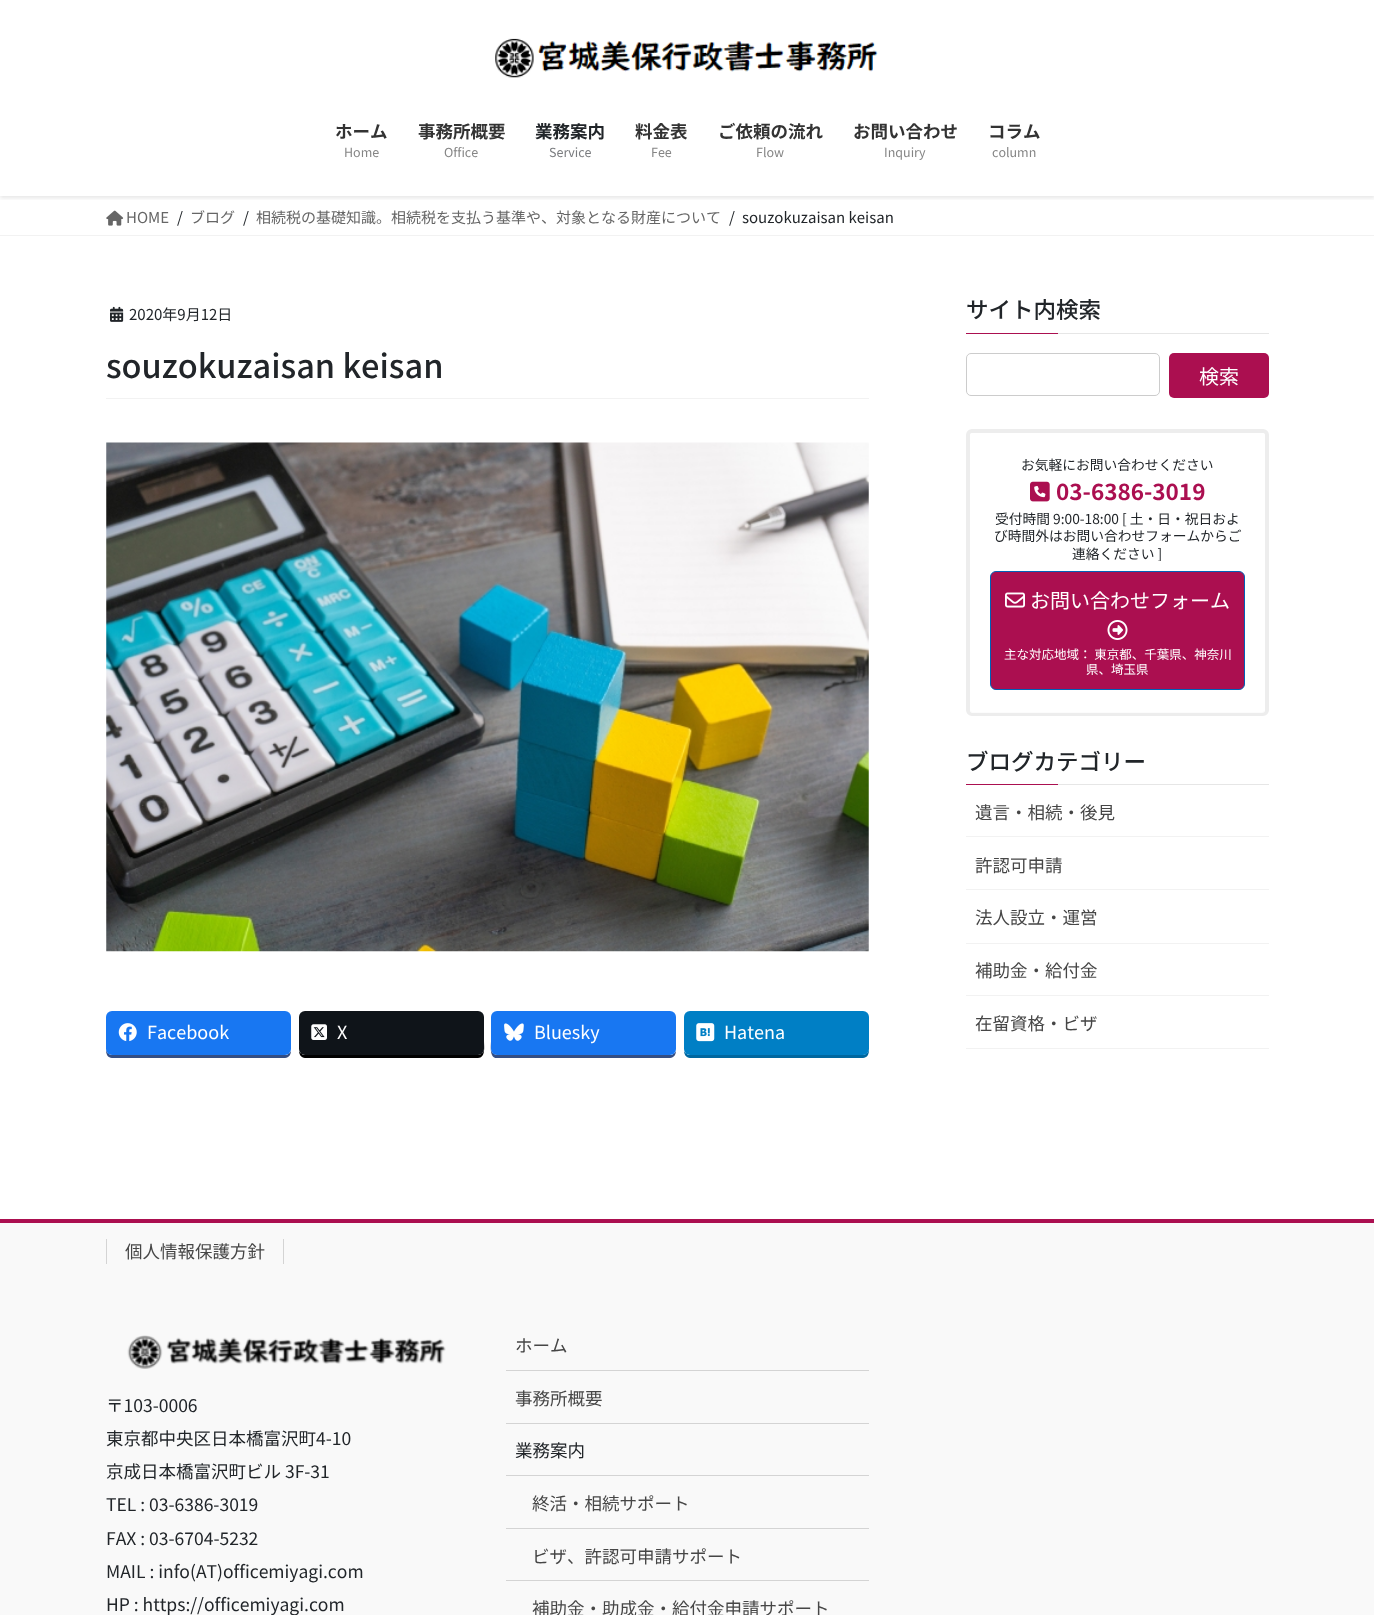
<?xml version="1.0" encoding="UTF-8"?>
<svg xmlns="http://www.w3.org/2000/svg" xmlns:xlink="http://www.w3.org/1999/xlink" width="1374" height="1615">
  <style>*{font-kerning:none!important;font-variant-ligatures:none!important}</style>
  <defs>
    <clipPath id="clip1"><rect x="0" y="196" width="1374" height="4" /></clipPath>
    <clipPath id="clip2"><rect x="106" y="1011" width="763" height="48" /></clipPath>
    <clipPath id="clip3"><rect x="990" y="509" width="255" height="52" /></clipPath>
  </defs>
  <rect width="100%" height="100%" fill="#ffffff" />
  <g clip-path="url(#clip1)">
    <rect y="1" width="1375" height="197" fill="#000000" fill-opacity="0.1" filter="blur(2px)" />
  </g>
  <image x="495" y="38" width="383" height="40" xlink:href="image1.png" />
  <rect y="235" width="1374" height="1" fill="#f2f2f2" />
  <image x="106" y="210" width="18" height="16" xlink:href="image2.png" />
  <rect x="106" y="398" width="763" height="1" fill="#f2f2f2" />
  <image x="110" y="306" width="14" height="16" xlink:href="image3.png" />
  <image x="106" y="442" width="763" height="510" xlink:href="image4.png" />
  <g clip-path="url(#clip2)">
    <path d="M 106 1018 v 23 c 0 5 -2 17 6 17 h 173 c 4 0 6 -4 6 -7 c -1 2 -3 4 -6 4 h -173 c -3 0 -6 -3 -6 -6 z" fill="#344e84" />
  </g>
  <rect x="106" y="1011" width="185" height="44" rx="6" fill="#1877f2" />
  <image x="118" y="1023" width="19" height="19" xlink:href="image5.png" />
  <path d="M 299 1051 c 0 3 2 7 6 7 h 173 c 8 0 6 -12 6 -17 v -23 v 31 c 0 3 -3 6 -6 6 h -173 c -3 0 -5 -2 -6 -4 z" fill="#000000" />
  <rect x="299" y="1011" width="185" height="44" rx="6" fill="#0f1419" />
  <image x="311" y="1024" width="16" height="16" xlink:href="image6.png" />
  <path d="M 491 1018 v 23 c 0 5 -2 17 6 17 h 173 c 4 0 6 -4 6 -7 c -1 2 -3 4 -6 4 h -172 c -4 0 -7 -3 -7 -6 z" fill="#344e84" />
  <rect x="491" y="1011" width="185" height="44" rx="6" fill="#1877f2" />
  <image x="504" y="1023" width="20" height="18" xlink:href="image7.png" />
  <g clip-path="url(#clip2)">
    <path d="M 684 1051 c 0 3 2 7 6 7 h 173 c 8 0 6 -12 6 -17 v -23 v 31 c 0 3 -3 6 -7 6 h -172 c -3 0 -5 -2 -6 -4 z" fill="#00679f" />
  </g>
  <rect x="684" y="1011" width="185" height="44" rx="6" fill="#007fc5" />
  <image x="696" y="1023" width="19" height="19" xlink:href="image8.png" />
  <rect x="1058" y="333" width="211" height="1" fill="#e6e6e6" />
  <rect x="966" y="333" width="92" height="1" fill="#ab0f50" />
  <rect x="966.5" y="353.5" width="193" height="42" rx="4.5" fill="none" stroke="#cccccc" />
  <rect x="1169" y="353" width="100" height="45" rx="5" fill="#ab0f50" />
  <rect x="968" y="431" width="299" height="283" rx="4" fill="none" stroke="#ededed" stroke-width="4" />
  <path d="M 972 433 c -1 0 -2 1 -2 3 v 274 c 0 2 1 3 2 3 h 290 c 2 0 3 -1 3 -3 v -274 c 0 -2 -1 -3 -3 -3 z m -1 1 v 278 h 293 v -278 z" fill="#ffffff" fill-opacity="0.8" fill-rule="evenodd" />
  <image x="1030" y="481" width="20" height="21" xlink:href="image9.png" />
  <rect x="990.5" y="571.5" width="254" height="118" rx="5.5" fill="#ab0f50" stroke="#0061b7" />
  <image x="1005" y="592" width="20" height="16" xlink:href="image10.png" />
  <image x="1107" y="620" width="21" height="20" xlink:href="image11.png" />
  <rect x="1058" y="784" width="211" height="1" fill="#e6e6e6" />
  <rect x="966" y="784" width="92" height="1" fill="#ab0f50" />
  <rect x="966" y="836" width="303" height="1" fill="#f2f2f2" />
  <rect x="966" y="889" width="303" height="1" fill="#f2f2f2" />
  <rect x="966" y="943" width="303" height="1" fill="#f2f2f2" />
  <rect x="966" y="995" width="303" height="1" fill="#f2f2f2" />
  <rect x="966" y="1048" width="303" height="1" fill="#f2f2f2" />
  <rect y="1223" width="1374" height="392" fill="#f9f9f9" />
  <rect y="1219" width="1374" height="4" fill="#ab0f50" />
  <rect x="283" y="1239" width="1" height="25" fill="#d4d4d4" />
  <rect x="106" y="1239" width="1" height="25" fill="#d4d4d4" />
  <image x="127" y="1335" width="319" height="34" xlink:href="image12.png" />
  <rect x="506" y="1370" width="363" height="1" fill="#d4d4d4" />
  <rect x="506" y="1423" width="363" height="1" fill="#d4d4d4" />
  <rect x="506" y="1475" width="363" height="1" fill="#d4d4d4" />
  <rect x="506" y="1528" width="363" height="1" fill="#d4d4d4" />
  <rect x="506" y="1580" width="363" height="1" fill="#d4d4d4" />
  <text x="335" y="138" style="font-family: Noto Sans JP; font-size: 17.5px; font-weight: bold; fill: #333333">ホーム</text>
  <text x="344" y="157" style="font-family: Noto Sans JP; font-size: 12.5px; fill: #858585">Home</text>
  <text x="418" y="138" style="font-family: Noto Sans JP; font-size: 17.5px; font-weight: bold; fill: #333333">事務所概要</text>
  <text x="444" y="157" style="font-family: Noto Sans JP; font-size: 12.5px; fill: #858585">Office</text>
  <text x="535" y="138" style="font-family: Noto Sans JP; font-size: 17.5px; font-weight: bold; fill: #212529">業務案内</text>
  <text x="549" y="157" style="font-family: Noto Sans JP; font-size: 12.5px; fill: #7a7c7f">Service</text>
  <text x="635" y="138" style="font-family: Noto Sans JP; font-size: 17.5px; font-weight: bold; fill: #333333">料金表</text>
  <text x="651" y="157" style="font-family: Noto Sans JP; font-size: 12.5px; fill: #858585">Fee</text>
  <text x="718" y="138" style="font-family: Noto Sans JP; font-size: 17.5px; font-weight: bold; fill: #333333">ご依頼の流れ</text>
  <text x="756" y="157" style="font-family: Noto Sans JP; font-size: 12.5px; fill: #858585">Flow</text>
  <text x="853" y="138" style="font-family: Noto Sans JP; font-size: 17.5px; font-weight: bold; fill: #333333">お問い合わせ</text>
  <text x="884" y="157" style="font-family: Noto Sans JP; font-size: 12.5px; fill: #858585">Inquiry</text>
  <text x="988" y="138" style="font-family: Noto Sans JP; font-size: 17.5px; font-weight: bold; fill: #333333">コラム</text>
  <text x="992" y="157" style="font-family: Noto Sans JP; font-size: 12.5px; fill: #858585">column</text>
  <text x="126" y="223" style="font-family: Noto Sans JP; font-size: 15px; fill: #666666">HOME</text>
  <text x="177" y="223" style="font-family: Noto Sans JP; font-size: 15px; fill: #212529">/</text>
  <text x="190" y="223" style="font-family: Noto Sans JP; font-size: 15px; fill: #666666">ブログ</text>
  <text x="243" y="223" style="font-family: Noto Sans JP; font-size: 15px; fill: #212529">/</text>
  <text x="256" y="223" style="font-family: Noto Sans JP; font-size: 15px; fill: #666666">相続税の基礎知識。相続税を支払う基準や、対象となる財産について</text>
  <text x="729" y="223" style="font-family: Noto Sans JP; font-size: 15px; fill: #212529">/</text>
  <text x="742" y="223" style="font-family: Noto Sans JP; font-size: 15px; fill: #212529">souzokuzaisan keisan</text>
  <text x="129" y="320" style="font-family: Noto Sans JP; font-size: 15px; fill: #212529">2020年9月12日</text>
  <text x="106" y="378" style="font-family: Noto Sans JP; font-size: 32.5px; font-weight: 500; fill: #212529">souzokuzaisan keisan</text>
  <text x="147" y="1039" style="font-family: Noto Sans JP; font-size: 18px; fill: #ffffff">Facebook</text>
  <text x="337" y="1039" style="font-family: Noto Sans JP; font-size: 18px; fill: #ffffff">X</text>
  <text x="534" y="1039" style="font-family: Noto Sans JP; font-size: 18px; fill: #ffffff">Bluesky</text>
  <text x="724" y="1039" style="font-family: Noto Sans JP; font-size: 18px; fill: #ffffff">Hatena</text>
  <text x="966" y="318" style="font-family: Noto Sans JP; font-size: 22.5px; font-weight: 500; fill: #212529">サイト内検索</text>
  <text x="1199" y="384" style="font-family: Noto Sans JP; font-size: 20px; fill: #ffffff">検索</text>
  <text x="1021" y="470" style="font-family: Noto Sans JP; font-size: 13.75px; fill: #212529">お気軽にお問い合わせください</text>
  <text x="1056" y="500" style="font-family: Noto Sans JP; font-size: 22.5px; font-weight: bold; fill: #ab0f50">03-6386-3019</text>
  <text x="995" y="524" style="font-family: Noto Sans JP; font-size: 13.75px; fill: #212529">受付時間 9:00-18:00 [ 土・日・祝日およ</text>
  <text x="994" y="541" style="font-family: Noto Sans JP; font-size: 13.75px; fill: #212529">び時間外はお問い合わせフォームからご</text>
  <g clip-path="url(#clip3)">
    <text x="1072" y="559" style="font-family: Noto Sans JP; font-size: 13.75px; fill: #212529">連絡ください ]</text>
  </g>
  <text x="1030" y="608" style="font-family: Noto Sans JP; font-size: 20px; fill: #ffffff">お問い合わせフォーム</text>
  <text x="1004" y="659" style="font-family: Noto Sans JP; font-size: 12.5px; fill: #ffffff">主な対応地域： 東京都、千葉県、神奈川</text>
  <text x="1086" y="674" style="font-family: Noto Sans JP; font-size: 12.5px; fill: #ffffff">県、埼玉県</text>
  <text x="966" y="770" style="font-family: Noto Sans JP; font-size: 22.5px; font-weight: 500; fill: #212529">ブログカテゴリー</text>
  <text x="975" y="819" style="font-family: Noto Sans JP; font-size: 17.5px; fill: #464646">遺言・相続・後見</text>
  <text x="975" y="872" style="font-family: Noto Sans JP; font-size: 17.5px; fill: #464646">許認可申請</text>
  <text x="975" y="924" style="font-family: Noto Sans JP; font-size: 17.5px; fill: #464646">法人設立・運営</text>
  <text x="975" y="977" style="font-family: Noto Sans JP; font-size: 17.5px; fill: #464646">補助金・給付金</text>
  <text x="975" y="1030" style="font-family: Noto Sans JP; font-size: 17.5px; fill: #464646">在留資格・ビザ</text>
  <text x="125" y="1258" style="font-family: Noto Sans JP; font-size: 17.5px; fill: #464646">個人情報保護方針</text>
  <text x="106" y="1412" style="font-family: Noto Sans JP; font-size: 17.5px; fill: #212529">〒103-0006</text>
  <text x="106" y="1445" style="font-family: Noto Sans JP; font-size: 17.5px; fill: #212529">東京都中央区日本橋富沢町4-10</text>
  <text x="106" y="1478" style="font-family: Noto Sans JP; font-size: 17.5px; fill: #212529">京成日本橋富沢町ビル 3F-31</text>
  <text x="106" y="1511" style="font-family: Noto Sans JP; font-size: 17.5px; fill: #212529">TEL : 03-6386-3019</text>
  <text x="106" y="1545" style="font-family: Noto Sans JP; font-size: 17.5px; fill: #212529">FAX : 03-6704-5232</text>
  <text x="106" y="1578" style="font-family: Noto Sans JP; font-size: 17.5px; fill: #212529">MAIL : info(AT)officemiyagi.com</text>
  <text x="106" y="1611" style="font-family: Noto Sans JP; font-size: 17.5px; fill: #212529">HP : https://officemiyagi.com</text>
  <text x="515" y="1352" style="font-family: Noto Sans JP; font-size: 17.5px; fill: #464646">ホーム</text>
  <text x="515" y="1405" style="font-family: Noto Sans JP; font-size: 17.5px; fill: #464646">事務所概要</text>
  <text x="515" y="1457" style="font-family: Noto Sans JP; font-size: 17.5px; fill: #212529">業務案内</text>
  <text x="532" y="1510" style="font-family: Noto Sans JP; font-size: 17.5px; fill: #464646">終活・相続サポート</text>
  <text x="532" y="1563" style="font-family: Noto Sans JP; font-size: 17.5px; fill: #464646">ビザ、許認可申請サポート</text>
  <text x="532" y="1615" style="font-family: Noto Sans JP; font-size: 17.5px; fill: #464646">補助金・助成金・給付金申請サポート</text>
</svg>
